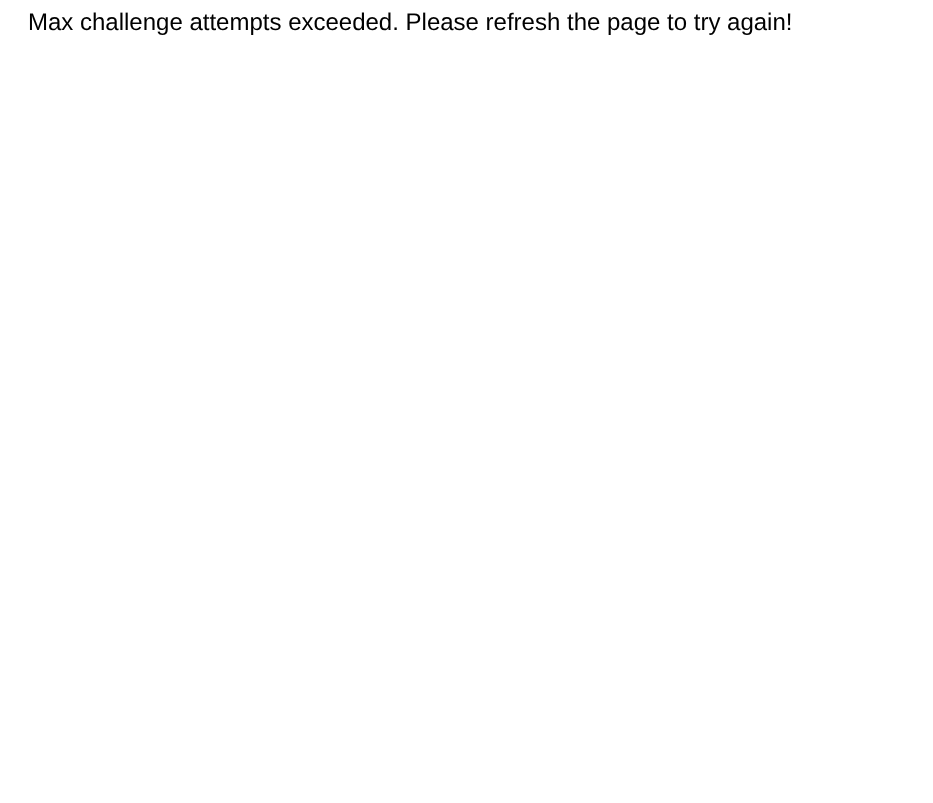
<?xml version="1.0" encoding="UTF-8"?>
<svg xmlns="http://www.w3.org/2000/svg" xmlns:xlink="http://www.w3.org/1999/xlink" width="933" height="803">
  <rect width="100%" height="100%" fill="#ffffff" />
  <text x="28" y="30" style="font-family: Liberation Sans; font-size: 24px; fill: #000000">Max challenge attempts exceeded. Please refresh the page to try again!</text>
</svg>
